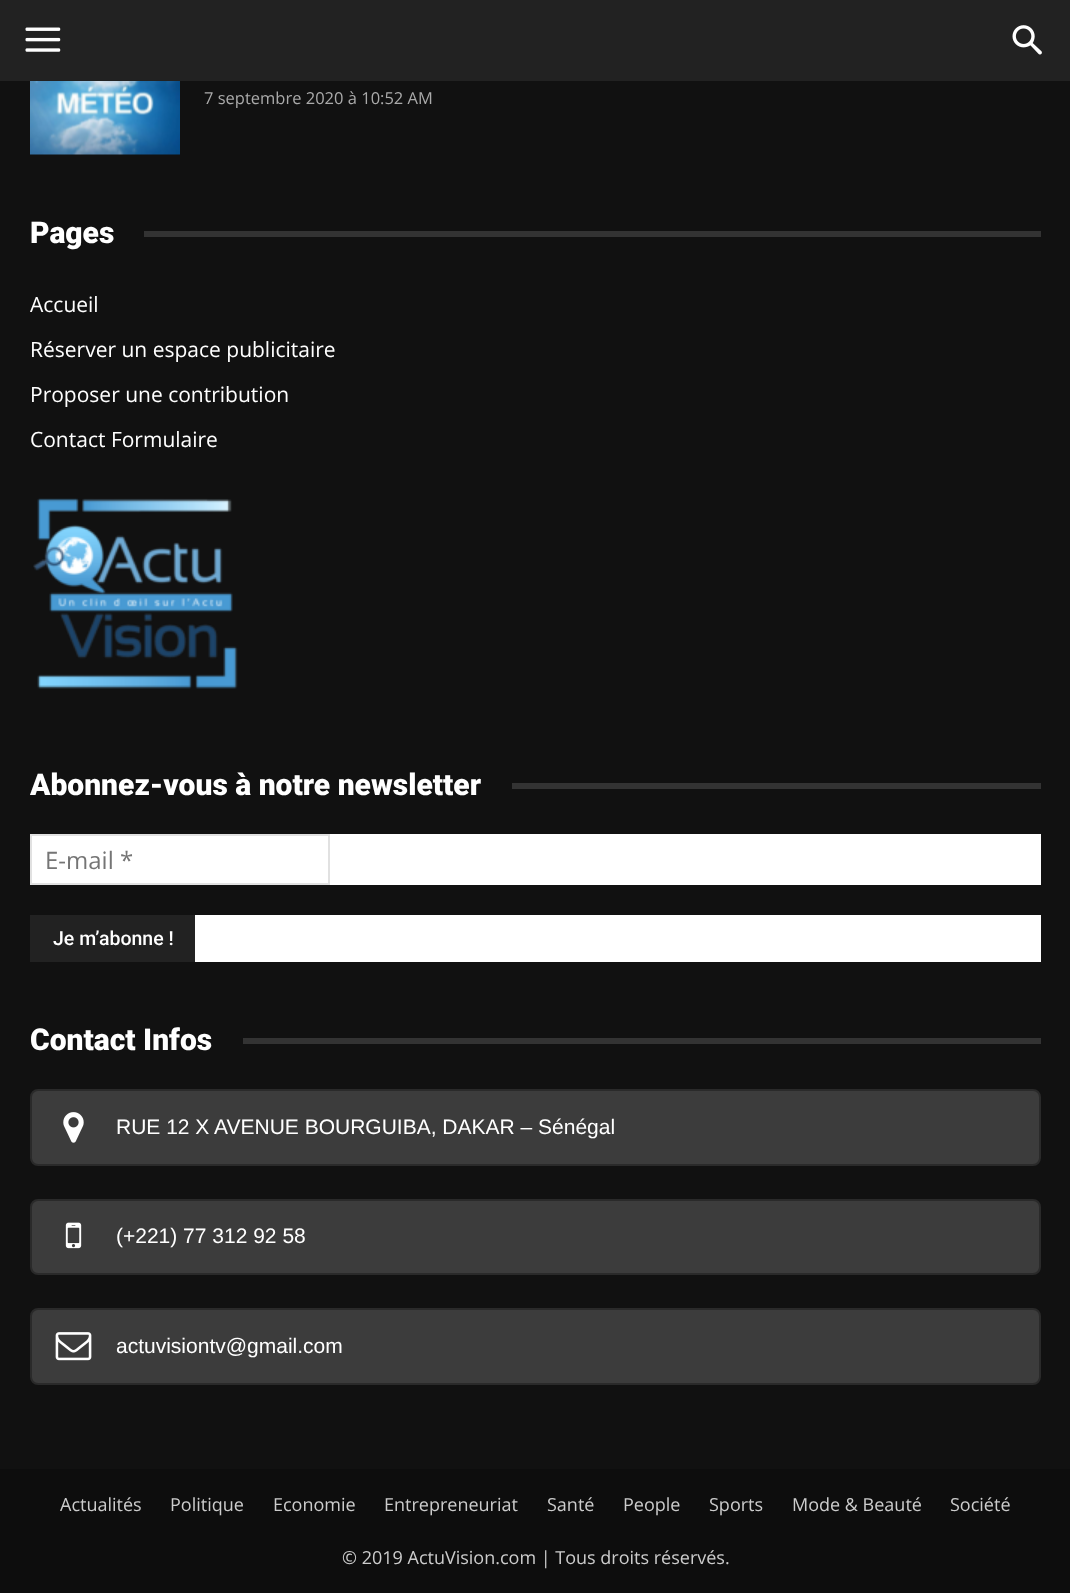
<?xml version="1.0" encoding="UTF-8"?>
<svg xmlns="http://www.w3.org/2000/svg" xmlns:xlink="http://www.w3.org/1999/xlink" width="1070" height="1593">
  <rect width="100%" height="100%" fill="#0d0d0d" />
  <rect width="1070" height="81" fill="#222222" />
  <image x="25" y="27" width="36" height="25" xlink:href="image1.png" />
  <image x="1012" y="25" width="30" height="30" xlink:href="image2.png" />
  <rect y="81" width="1070" height="1388" fill="#111111" />
  <image x="30" y="81" width="150" height="74" xlink:href="image3.png" />
  <rect x="144" y="231" width="897" height="6" fill="#333333" />
  <image x="33" y="498" width="205" height="191" xlink:href="image4.png" />
  <rect x="512" y="783" width="529" height="6" fill="#333333" />
  <rect x="32" y="834" width="1009" height="51" fill="#ffffff" />
  <rect x="31" y="835" width="298" height="49" fill="none" stroke="#e1e1e1" stroke-width="2" />
  <rect x="195" y="915" width="846" height="47" fill="#ffffff" />
  <rect x="30" y="915" width="165" height="47" fill="#222222" />
  <rect x="243" y="1038" width="798" height="6" fill="#333333" />
  <rect x="31" y="1090" width="1009" height="75" rx="7" fill="#3c3c3c" stroke="#2a2a2a" stroke-width="2" />
  <image x="63" y="1112" width="21" height="31" xlink:href="image5.png" />
  <rect x="31" y="1200" width="1009" height="74" rx="7" fill="#3c3c3c" stroke="#2a2a2a" stroke-width="2" />
  <image x="65" y="1222" width="17" height="27" xlink:href="image6.png" />
  <rect x="31" y="1309" width="1009" height="75" rx="7" fill="#3c3c3c" stroke="#2a2a2a" stroke-width="2" />
  <image x="55" y="1332" width="37" height="29" xlink:href="image7.png" />
  <text x="204" y="104" style="font-family: Open Sans; font-size: 16.5px; fill: #aaaaaa">7 septembre 2020 à 10:52 AM</text>
  <text x="30" y="243" style="font-family: Roboto; font-size: 30px; font-weight: 900; fill: #ffffff">Pages</text>
  <text x="30" y="312" style="font-family: Open Sans; font-size: 21px; fill: #ffffff">Accueil</text>
  <text x="30" y="357" style="font-family: Open Sans; font-size: 21px; fill: #ffffff">Réserver un espace publicitaire</text>
  <text x="30" y="402" style="font-family: Open Sans; font-size: 21px; fill: #ffffff">Proposer une contribution</text>
  <text x="30" y="447" style="font-family: Open Sans; font-size: 21px; fill: #ffffff">Contact Formulaire</text>
  <text x="30" y="795" style="font-family: Roboto; font-size: 30px; font-weight: 900; fill: #ffffff">Abonnez-vous à notre newsletter</text>
  <text x="45" y="869" style="font-family: Open Sans; font-size: 24px; fill: #757575">E-mail *</text>
  <text x="53" y="945" style="font-family: Roboto; font-size: 19.5px; font-weight: 500; fill: #ffffff">Je m’abonne !</text>
  <text x="30" y="1050" style="font-family: Roboto; font-size: 30px; font-weight: 900; fill: #ffffff">Contact Infos</text>
  <text x="116" y="1134" style="font-family: Liberation Sans; font-size: 21px; fill: #ffffff">RUE 12 X AVENUE BOURGUIBA, DAKAR – Sénégal</text>
  <text x="116" y="1243" style="font-family: Liberation Sans; font-size: 21px; fill: #ffffff">(+221) 77 312 92 58</text>
  <text x="116" y="1353" style="font-family: Liberation Sans; font-size: 21px; fill: #ffffff">actuvisiontv@gmail.com</text>
  <text x="60" y="1511" style="font-family: Open Sans; font-size: 18px; fill: #cccccc">Actualités</text>
  <text x="170" y="1511" style="font-family: Open Sans; font-size: 18px; fill: #cccccc">Politique</text>
  <text x="273" y="1511" style="font-family: Open Sans; font-size: 18px; fill: #cccccc">Economie</text>
  <text x="384" y="1511" style="font-family: Open Sans; font-size: 18px; fill: #cccccc">Entrepreneuriat</text>
  <text x="547" y="1511" style="font-family: Open Sans; font-size: 18px; fill: #cccccc">Santé</text>
  <text x="623" y="1511" style="font-family: Open Sans; font-size: 18px; fill: #cccccc">People</text>
  <text x="709" y="1511" style="font-family: Open Sans; font-size: 18px; fill: #cccccc">Sports</text>
  <text x="792" y="1511" style="font-family: Open Sans; font-size: 18px; fill: #cccccc">Mode &amp; Beauté</text>
  <text x="950" y="1511" style="font-family: Open Sans; font-size: 18px; fill: #cccccc">Société</text>
  <text x="342" y="1564" style="font-family: Open Sans; font-size: 18px; fill: #cccccc">© 2019 ActuVision.com | Tous droits réservés.</text>
</svg>
